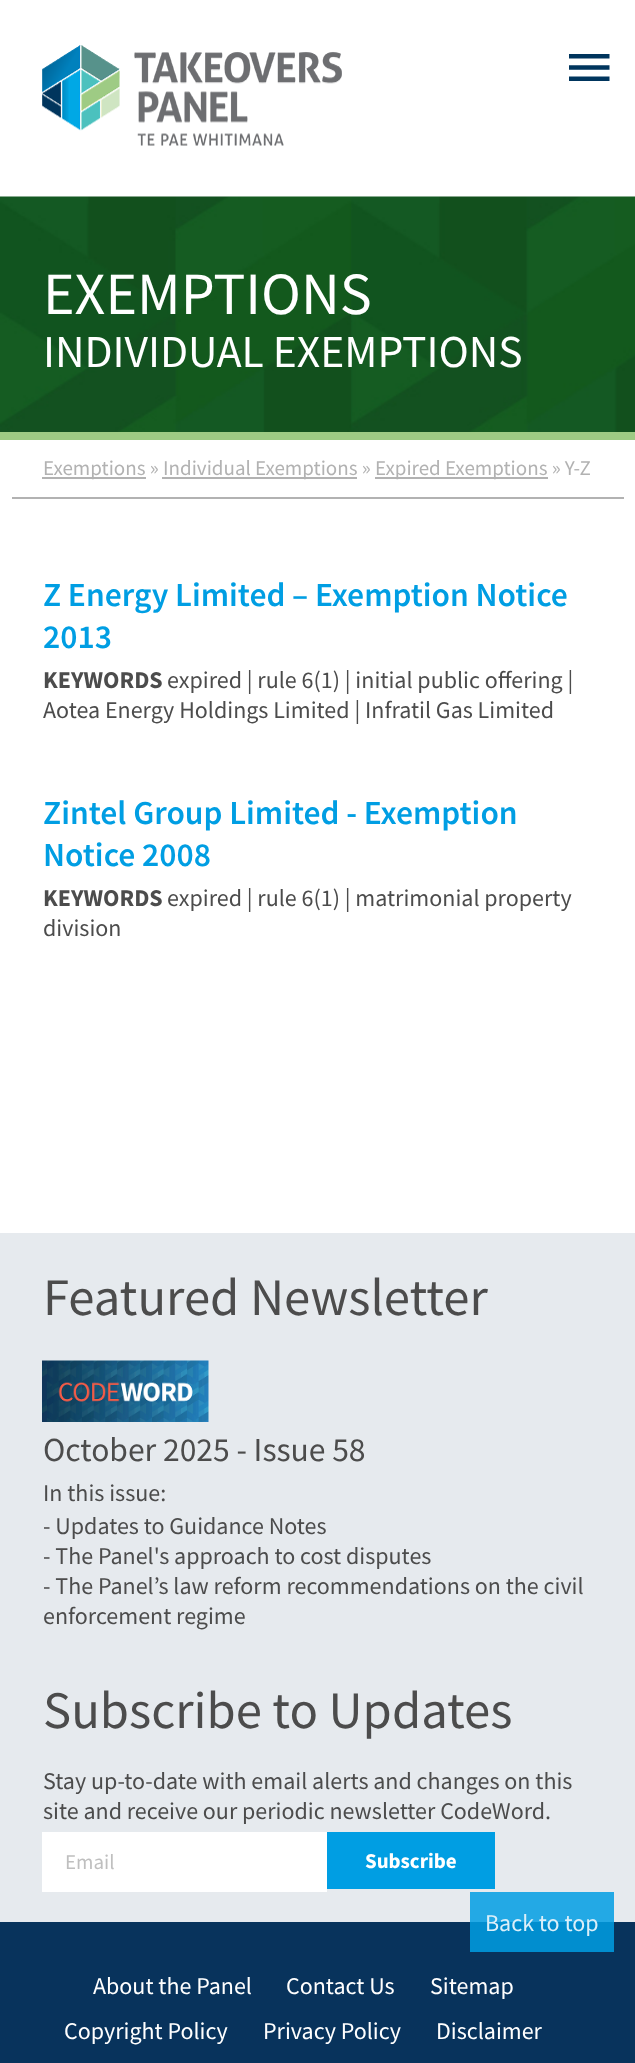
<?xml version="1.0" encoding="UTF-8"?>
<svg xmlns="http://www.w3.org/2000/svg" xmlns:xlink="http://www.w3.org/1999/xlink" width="635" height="2063">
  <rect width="100%" height="100%" fill="#ffffff" />
  <image x="569" y="54" width="41" height="27" xlink:href="image1.png" />
  <image x="42" y="45" width="300" height="101" xlink:href="image2.png" />
  <image x="0" y="196" width="635" height="236" xlink:href="image3.png" />
  <rect y="432" width="635" height="8" fill="#9ecb84" />
  <rect x="12" y="497" width="612" height="2" fill="#b2b2b2" />
  <rect x="42" y="477" width="104" height="2" fill="#b2b2b2" />
  <rect x="162" y="477" width="195" height="2" fill="#b2b2b2" />
  <rect x="375" y="477" width="173" height="2" fill="#b2b2b2" />
  <rect y="1233" width="635" height="689" fill="#e6eaee" />
  <rect x="470" y="1892" width="144" height="30" fill="#23a9e5" />
  <image x="42" y="1360" width="167" height="62" xlink:href="image4.png" />
  <rect x="42" y="1832" width="285" height="60" fill="#ffffff" />
  <rect x="327" y="1832" width="168" height="57" fill="#009ee3" />
  <rect y="1922" width="635" height="141" fill="#08335c" />
  <rect x="470" y="1922" width="144" height="30" fill="#018ecf" />
  <text x="43" y="314" style="font-family: Source Sans Pro; font-size: 60px; fill: #ffffff">EXEMPTIONS</text>
  <text x="43" y="367" style="font-family: Source Sans Pro; font-size: 45.6px; fill: #ffffff">INDIVIDUAL EXEMPTIONS</text>
  <text x="43" y="475" style="font-family: Source Sans Pro; font-size: 21px; fill: #b2b2b2">Exemptions »</text>
  <text x="163" y="475" style="font-family: Source Sans Pro; font-size: 21px; fill: #b2b2b2">Individual Exemptions »</text>
  <text x="375" y="475" style="font-family: Source Sans Pro; font-size: 21px; fill: #b2b2b2">Expired Exemptions » Y-Z</text>
  <text x="43" y="606" style="font-family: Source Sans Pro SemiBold; font-size: 33.6px; font-weight: 600; fill: #009ee3">Z Energy Limited – Exemption Notice</text>
  <text x="43" y="648" style="font-family: Source Sans Pro SemiBold; font-size: 33.6px; font-weight: 600; fill: #009ee3">2013</text>
  <text x="43" y="688" style="font-family: Source Sans Pro; font-size: 24px; font-weight: bold; fill: #4c4c4c">KEYWORDS</text>
  <text x="167" y="688" style="font-family: Source Sans Pro; font-size: 24px; fill: #4c4c4c">expired | rule 6(1) | initial public offering |</text>
  <text x="43" y="718" style="font-family: Source Sans Pro; font-size: 24px; fill: #4c4c4c">Aotea Energy Holdings Limited | Infratil Gas Limited</text>
  <text x="43" y="824" style="font-family: Source Sans Pro SemiBold; font-size: 33.6px; font-weight: 600; fill: #009ee3">Zintel Group Limited - Exemption</text>
  <text x="43" y="866" style="font-family: Source Sans Pro SemiBold; font-size: 33.6px; font-weight: 600; fill: #009ee3">Notice 2008</text>
  <text x="43" y="906" style="font-family: Source Sans Pro; font-size: 24px; font-weight: bold; fill: #4c4c4c">KEYWORDS</text>
  <text x="167" y="906" style="font-family: Source Sans Pro; font-size: 24px; fill: #4c4c4c">expired | rule 6(1) | matrimonial property</text>
  <text x="43" y="936" style="font-family: Source Sans Pro; font-size: 24px; fill: #4c4c4c">division</text>
  <text x="43" y="1315" style="font-family: Source Sans Pro; font-size: 52.75px; fill: #4c4c4c">Featured Newsletter</text>
  <text x="43" y="1461" style="font-family: Source Sans Pro; font-size: 33.6px; fill: #4c4c4c">October 2025 - Issue 58</text>
  <text x="43" y="1501" style="font-family: Source Sans Pro; font-size: 24px; fill: #4c4c4c">In this issue:</text>
  <text x="43" y="1534" style="font-family: Source Sans Pro; font-size: 24px; fill: #4c4c4c">- Updates to Guidance Notes</text>
  <text x="43" y="1564" style="font-family: Source Sans Pro; font-size: 24px; fill: #4c4c4c">- The Panel's approach to cost disputes</text>
  <text x="43" y="1594" style="font-family: Source Sans Pro; font-size: 24px; fill: #4c4c4c">- The Panel’s law reform recommendations on the civil</text>
  <text x="43" y="1624" style="font-family: Source Sans Pro; font-size: 24px; fill: #4c4c4c">enforcement regime</text>
  <text x="43" y="1728" style="font-family: Source Sans Pro; font-size: 52.75px; fill: #4c4c4c">Subscribe to Updates</text>
  <text x="43" y="1789" style="font-family: Source Sans Pro; font-size: 24px; fill: #4c4c4c">Stay up-to-date with email alerts and changes on this</text>
  <text x="43" y="1819" style="font-family: Source Sans Pro; font-size: 24px; fill: #4c4c4c">site and receive our periodic newsletter CodeWord.</text>
  <text x="65" y="1869" style="font-family: Source Sans Pro; font-size: 21px; fill: #bfbfbf">Email</text>
  <text x="365" y="1868" style="font-family: Source Sans Pro; font-size: 21px; font-weight: bold; fill: #ffffff">Subscribe</text>
  <text x="485" y="1931" style="font-family: Source Sans Pro; font-size: 24px; fill: #dbeff9">Back to top</text>
  <text x="93" y="1994" style="font-family: Source Sans Pro; font-size: 24px; fill: #ffffff">About the Panel</text>
  <text x="286" y="1994" style="font-family: Source Sans Pro; font-size: 24px; fill: #ffffff">Contact Us</text>
  <text x="430" y="1994" style="font-family: Source Sans Pro; font-size: 24px; fill: #ffffff">Sitemap</text>
  <text x="64" y="2039" style="font-family: Source Sans Pro; font-size: 24px; fill: #ffffff">Copyright Policy</text>
  <text x="263" y="2039" style="font-family: Source Sans Pro; font-size: 24px; fill: #ffffff">Privacy Policy</text>
  <text x="436" y="2039" style="font-family: Source Sans Pro; font-size: 24px; fill: #ffffff">Disclaimer</text>
</svg>
